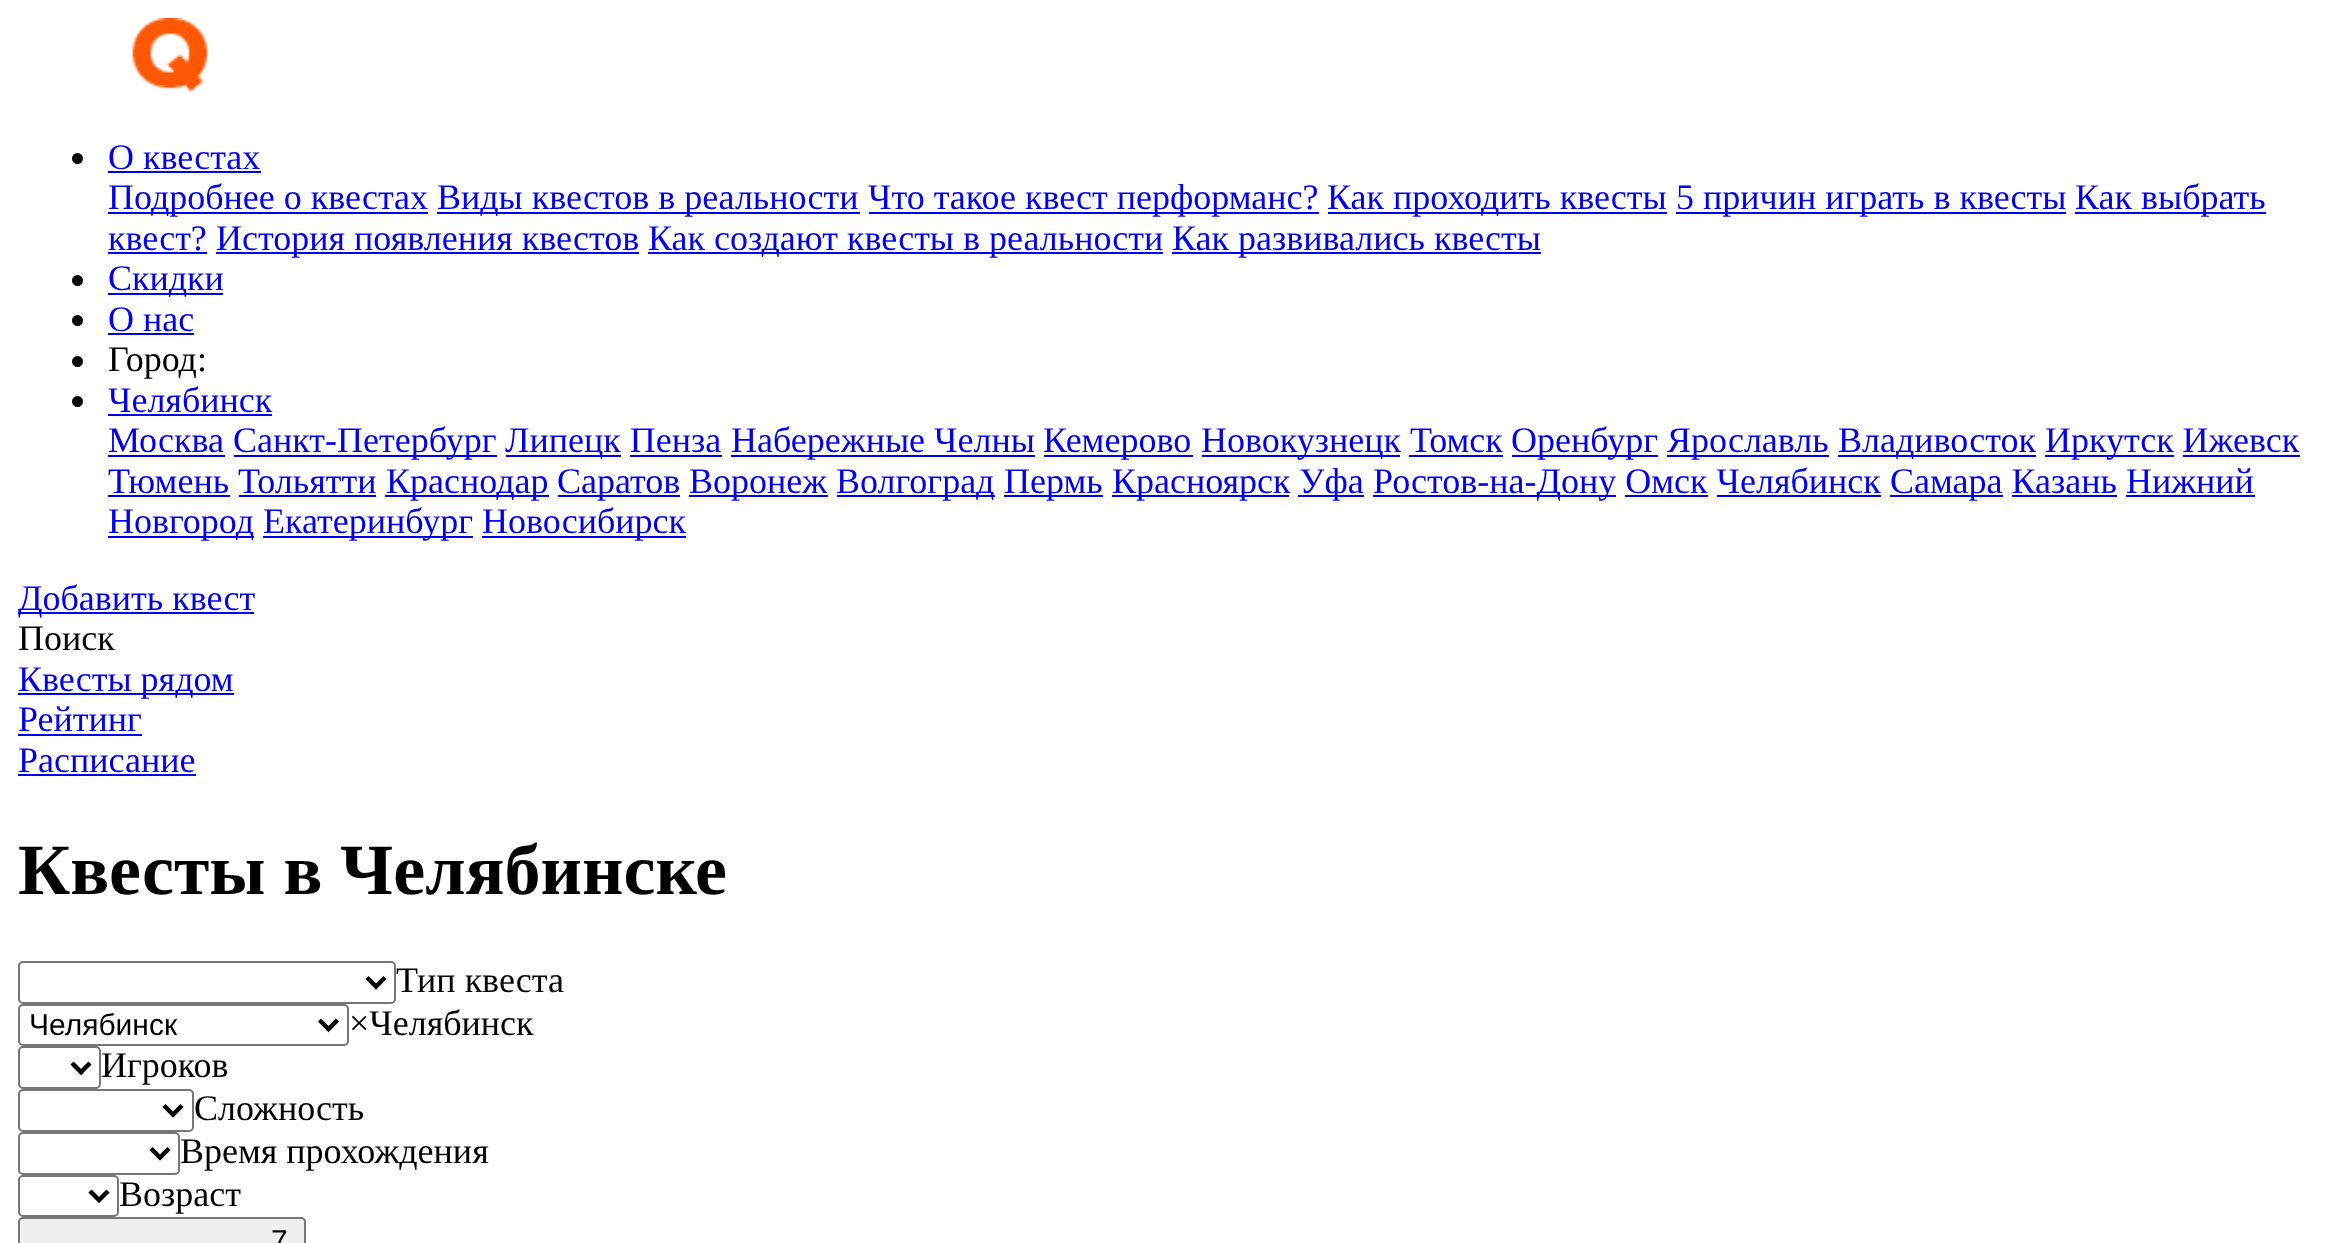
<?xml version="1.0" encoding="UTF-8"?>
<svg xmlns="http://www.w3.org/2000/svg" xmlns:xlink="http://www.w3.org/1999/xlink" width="2329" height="1243">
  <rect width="100%" height="100%" fill="#ffffff" />
  <image x="132" y="18" width="76" height="75" xlink:href="image1.png" />
  <circle cx="77.5" cy="158.5" r="5.5" fill="#000000" />
  <rect x="108" y="171" width="153" height="2" fill="#0000ee" />
  <rect x="108" y="212" width="320" height="2" fill="#0000ee" />
  <rect x="437" y="212" width="423" height="2" fill="#0000ee" />
  <rect x="869" y="212" width="450" height="2" fill="#0000ee" />
  <rect x="1328" y="212" width="339" height="2" fill="#0000ee" />
  <rect x="1676" y="212" width="390" height="2" fill="#0000ee" />
  <rect x="2075" y="212" width="191" height="2" fill="#0000ee" />
  <rect x="108" y="252" width="99" height="2" fill="#0000ee" />
  <rect x="216" y="252" width="423" height="2" fill="#0000ee" />
  <rect x="648" y="252" width="515" height="2" fill="#0000ee" />
  <rect x="1172" y="252" width="369" height="2" fill="#0000ee" />
  <circle cx="77.5" cy="280.5" r="5.5" fill="#000000" />
  <rect x="108" y="293" width="115" height="2" fill="#0000ee" />
  <circle cx="77.5" cy="320.5" r="5.5" fill="#000000" />
  <rect x="108" y="333" width="86" height="2" fill="#0000ee" />
  <circle cx="77.5" cy="361.5" r="5.5" fill="#000000" />
  <circle cx="77.5" cy="401.5" r="5.5" fill="#000000" />
  <rect x="108" y="414" width="164" height="2" fill="#0000ee" />
  <rect x="108" y="455" width="117" height="2" fill="#0000ee" />
  <rect x="234" y="455" width="263" height="2" fill="#0000ee" />
  <rect x="506" y="455" width="115" height="2" fill="#0000ee" />
  <rect x="731" y="455" width="304" height="2" fill="#0000ee" />
  <rect x="1044" y="455" width="149" height="2" fill="#0000ee" />
  <rect x="1202" y="455" width="198" height="2" fill="#0000ee" />
  <rect x="1512" y="455" width="146" height="2" fill="#0000ee" />
  <rect x="1667" y="455" width="162" height="2" fill="#0000ee" />
  <rect x="1838" y="455" width="198" height="2" fill="#0000ee" />
  <rect x="2045" y="455" width="129" height="2" fill="#0000ee" />
  <rect x="630" y="455" width="92" height="2" fill="#0000ee" />
  <rect x="1409" y="455" width="94" height="2" fill="#0000ee" />
  <rect x="2183" y="455" width="117" height="2" fill="#0000ee" />
  <rect x="108" y="495" width="122" height="2" fill="#0000ee" />
  <rect x="385" y="495" width="164" height="2" fill="#0000ee" />
  <rect x="558" y="495" width="122" height="2" fill="#0000ee" />
  <rect x="689" y="495" width="139" height="2" fill="#0000ee" />
  <rect x="837" y="495" width="158" height="2" fill="#0000ee" />
  <rect x="1004" y="495" width="99" height="2" fill="#0000ee" />
  <rect x="1112" y="495" width="177" height="2" fill="#0000ee" />
  <rect x="1298" y="495" width="66" height="2" fill="#0000ee" />
  <rect x="1373" y="495" width="243" height="2" fill="#0000ee" />
  <rect x="1890" y="495" width="113" height="2" fill="#0000ee" />
  <rect x="239" y="495" width="137" height="2" fill="#0000ee" />
  <rect x="1625" y="495" width="83" height="2" fill="#0000ee" />
  <rect x="1717" y="495" width="164" height="2" fill="#0000ee" />
  <rect x="2012" y="495" width="105" height="2" fill="#0000ee" />
  <rect x="2126" y="495" width="129" height="2" fill="#0000ee" />
  <rect x="108" y="536" width="146" height="2" fill="#0000ee" />
  <rect x="263" y="536" width="210" height="2" fill="#0000ee" />
  <rect x="482" y="536" width="204" height="2" fill="#0000ee" />
  <rect x="18" y="612" width="236" height="2" fill="#0000ee" />
  <rect x="18" y="693" width="216" height="2" fill="#0000ee" />
  <rect x="18" y="734" width="124" height="2" fill="#0000ee" />
  <rect x="18" y="774" width="178" height="2" fill="#0000ee" />
  <rect x="19" y="962" width="376" height="41" rx="4" fill="none" stroke="#767676" stroke-width="2" />
  <path d="M 367 977.5 l 9 9 l 9 -9" fill="none" stroke="#000000" stroke-width="4.5" />
  <rect x="19" y="1005" width="329" height="40" rx="4" fill="none" stroke="#767676" stroke-width="2" />
  <path d="M 319.5 1020 l 9 9 l 9 -9" fill="none" stroke="#000000" stroke-width="4.5" />
  <rect x="19" y="1047" width="81" height="41" rx="4" fill="none" stroke="#767676" stroke-width="2" />
  <path d="M 72 1063 l 9 9 l 9 -9" fill="none" stroke="#000000" stroke-width="4.5" />
  <rect x="19" y="1090" width="174" height="41" rx="4" fill="none" stroke="#767676" stroke-width="2" />
  <path d="M 164 1105.5 l 9 9 l 9 -9" fill="none" stroke="#000000" stroke-width="4.5" />
  <rect x="19" y="1133" width="160" height="41" rx="4" fill="none" stroke="#767676" stroke-width="2" />
  <path d="M 151 1148.5 l 9 9 l 9 -9" fill="none" stroke="#000000" stroke-width="4.5" />
  <rect x="19" y="1176" width="99" height="40" rx="4" fill="none" stroke="#767676" stroke-width="2" />
  <path d="M 90 1191 l 9 9 l 9 -9" fill="none" stroke="#000000" stroke-width="4.5" />
  <rect x="19" y="1218" width="286" height="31" rx="4" fill="#efefef" stroke="#767676" stroke-width="2" />
  <text x="108" y="169" style="font-family: Liberation Serif; font-size: 36px; fill: #0000ee">О квестах</text>
  <text x="108" y="209" style="font-family: Liberation Serif; font-size: 36px; fill: #0000ee">Подробнее о квестах</text>
  <text x="437" y="209" style="font-family: Liberation Serif; font-size: 36px; fill: #0000ee">Виды квестов в реальности</text>
  <text x="868" y="209" style="font-family: Liberation Serif; font-size: 36px; fill: #0000ee">Что такое квест перформанс?</text>
  <text x="1327" y="209" style="font-family: Liberation Serif; font-size: 36px; fill: #0000ee">Как проходить квесты</text>
  <text x="1676" y="209" style="font-family: Liberation Serif; font-size: 36px; fill: #0000ee">5 причин играть в квесты</text>
  <text x="2075" y="209" style="font-family: Liberation Serif; font-size: 36px; fill: #0000ee">Как выбрать</text>
  <text x="108" y="250" style="font-family: Liberation Serif; font-size: 36px; fill: #0000ee">квест?</text>
  <text x="216" y="250" style="font-family: Liberation Serif; font-size: 36px; fill: #0000ee">История появления квестов</text>
  <text x="648" y="250" style="font-family: Liberation Serif; font-size: 36px; fill: #0000ee">Как создают квесты в реальности</text>
  <text x="1172" y="250" style="font-family: Liberation Serif; font-size: 36px; fill: #0000ee">Как развивались квесты</text>
  <text x="108" y="290" style="font-family: Liberation Serif; font-size: 36px; fill: #0000ee">Скидки</text>
  <text x="108" y="331" style="font-family: Liberation Serif; font-size: 36px; fill: #0000ee">О нас</text>
  <text x="108" y="371" style="font-family: Liberation Serif; font-size: 36px; fill: #000000">Город:</text>
  <text x="108" y="412" style="font-family: Liberation Serif; font-size: 36px; fill: #0000ee">Челябинск</text>
  <text x="108" y="452" style="font-family: Liberation Serif; font-size: 36px; fill: #0000ee">Москва</text>
  <text x="233" y="452" style="font-family: Liberation Serif; font-size: 36px; fill: #0000ee">Санкт-Петербург</text>
  <text x="505" y="452" style="font-family: Liberation Serif; font-size: 36px; fill: #0000ee">Липецк Пенза</text>
  <text x="731" y="452" style="font-family: Liberation Serif; font-size: 36px; fill: #0000ee">Набережные Челны</text>
  <text x="1043" y="452" style="font-family: Liberation Serif; font-size: 36px; fill: #0000ee">Кемерово</text>
  <text x="1201" y="452" style="font-family: Liberation Serif; font-size: 36px; fill: #0000ee">Новокузнецк Томск</text>
  <text x="1511" y="452" style="font-family: Liberation Serif; font-size: 36px; fill: #0000ee">Оренбург</text>
  <text x="1667" y="452" style="font-family: Liberation Serif; font-size: 36px; fill: #0000ee">Ярославль</text>
  <text x="1838" y="452" style="font-family: Liberation Serif; font-size: 36px; fill: #0000ee">Владивосток</text>
  <text x="2045" y="452" style="font-family: Liberation Serif; font-size: 36px; fill: #0000ee">Иркутск Ижевск</text>
  <text x="108" y="493" style="font-family: Liberation Serif; font-size: 36px; fill: #0000ee">Тюмень Тольятти</text>
  <text x="386" y="493" style="font-family: Liberation Serif; font-size: 36px; fill: #0000ee">Краснодар</text>
  <text x="557" y="493" style="font-family: Liberation Serif; font-size: 36px; fill: #0000ee">Саратов</text>
  <text x="689" y="493" style="font-family: Liberation Serif; font-size: 36px; fill: #0000ee">Воронеж</text>
  <text x="836" y="493" style="font-family: Liberation Serif; font-size: 36px; fill: #0000ee">Волгоград</text>
  <text x="1004" y="493" style="font-family: Liberation Serif; font-size: 36px; fill: #0000ee">Пермь</text>
  <text x="1112" y="493" style="font-family: Liberation Serif; font-size: 36px; fill: #0000ee">Красноярск</text>
  <text x="1299" y="493" style="font-family: Liberation Serif; font-size: 36px; fill: #0000ee">Уфа</text>
  <text x="1373" y="493" style="font-family: Liberation Serif; font-size: 36px; fill: #0000ee">Ростов-на-Дону Омск Челябинск</text>
  <text x="1890" y="493" style="font-family: Liberation Serif; font-size: 36px; fill: #0000ee">Самара Казань Нижний</text>
  <text x="108" y="533" style="font-family: Liberation Serif; font-size: 36px; fill: #0000ee">Новгород</text>
  <text x="263" y="533" style="font-family: Liberation Serif; font-size: 36px; fill: #0000ee">Екатеринбург</text>
  <text x="482" y="533" style="font-family: Liberation Serif; font-size: 36px; fill: #0000ee">Новосибирск</text>
  <text x="18" y="610" style="font-family: Liberation Serif; font-size: 36px; fill: #0000ee">Добавить квест</text>
  <text x="18" y="650" style="font-family: Liberation Serif; font-size: 36px; fill: #000000">Поиск</text>
  <text x="18" y="691" style="font-family: Liberation Serif; font-size: 36px; fill: #0000ee">Квесты рядом</text>
  <text x="18" y="731" style="font-family: Liberation Serif; font-size: 36px; fill: #0000ee">Рейтинг</text>
  <text x="18" y="772" style="font-family: Liberation Serif; font-size: 36px; fill: #0000ee">Расписание</text>
  <text x="18" y="894" style="font-family: Liberation Serif; font-size: 72px; font-weight: bold; fill: #000000">Квесты в Челябинске</text>
  <text x="396" y="992" style="font-family: Liberation Serif; font-size: 36px; fill: #000000">Тип квеста</text>
  <text x="29" y="1035" style="font-family: Liberation Sans; font-size: 30px; fill: #000000">Челябинск</text>
  <text x="349" y="1035" style="font-family: Liberation Serif; font-size: 36px; fill: #000000">×Челябинск</text>
  <text x="101" y="1077" style="font-family: Liberation Serif; font-size: 36px; fill: #000000">Игроков</text>
  <text x="194" y="1120" style="font-family: Liberation Serif; font-size: 36px; fill: #000000">Сложность</text>
  <text x="180" y="1163" style="font-family: Liberation Serif; font-size: 36px; fill: #000000">Время прохождения</text>
  <text x="119" y="1206" style="font-family: Liberation Serif; font-size: 36px; fill: #000000">Возраст</text>
  <text x="271" y="1251" style="font-family: Liberation Sans; font-size: 30px; fill: #000000">7</text>
</svg>
